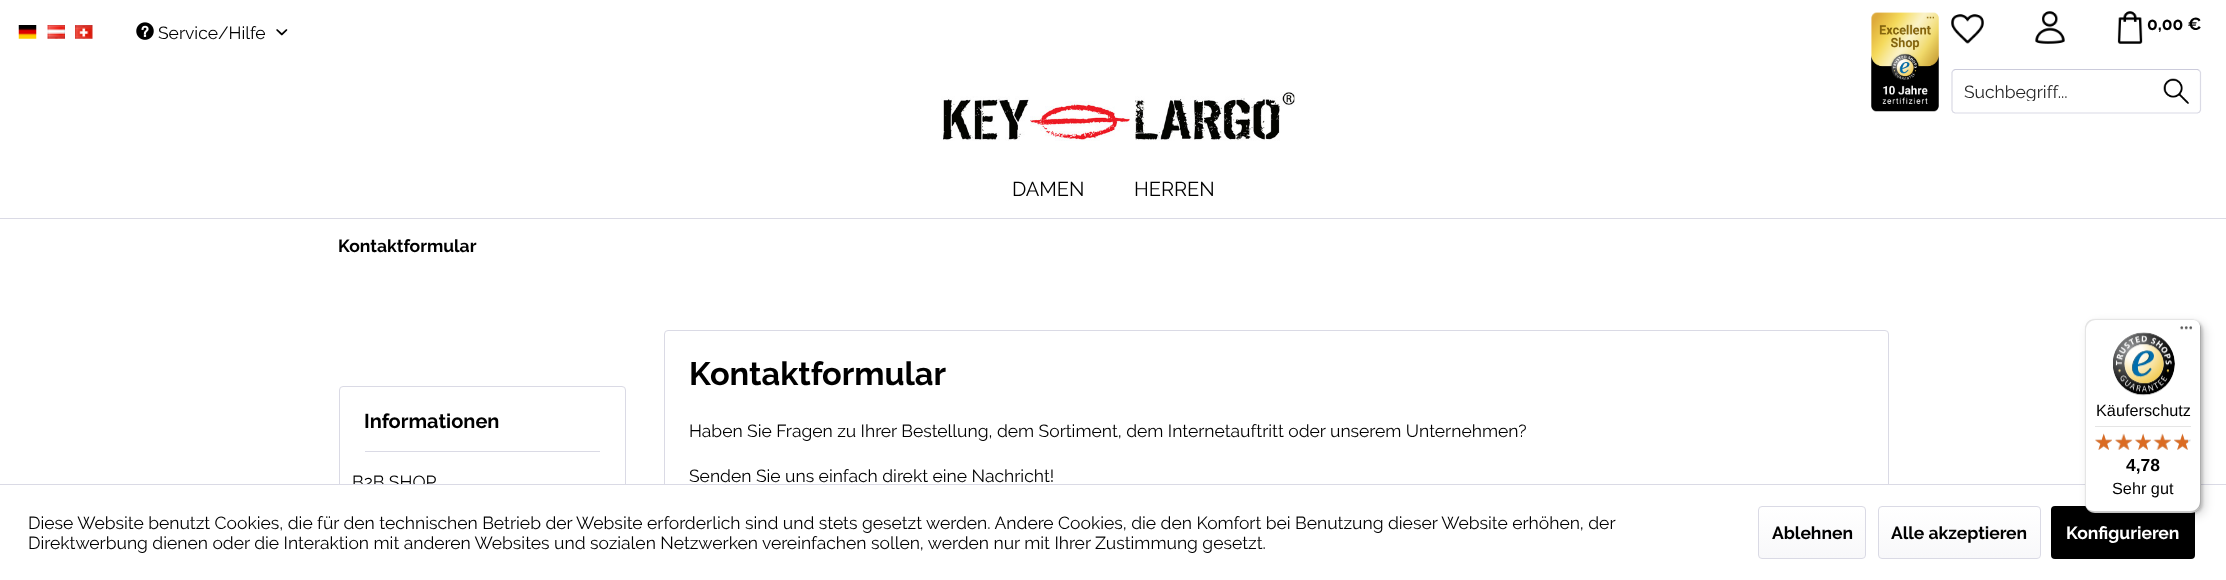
<?xml version="1.0" encoding="UTF-8"?>
<svg xmlns="http://www.w3.org/2000/svg" xmlns:xlink="http://www.w3.org/1999/xlink" width="2226" height="580">
  <defs>
    <clipPath id="clip1"><rect x="1964" y="81" width="184" height="20" /></clipPath>
    <linearGradient id="g1" gradientUnits="userSpaceOnUse" x1="1812" y1="508" x2="1812" y2="558"><stop offset="0" stop-color="#ffffff" /><stop offset="1" stop-color="#f8f8fa" /></linearGradient>
    <linearGradient id="g2" gradientUnits="userSpaceOnUse" x1="1959" y1="508" x2="1959" y2="558"><stop offset="0" stop-color="#ffffff" /><stop offset="1" stop-color="#f8f8fa" /></linearGradient>
  </defs>
  <rect width="100%" height="100%" fill="#ffffff" />
  <image x="18" y="25" width="19" height="14" xlink:href="image1.png" />
  <image x="47" y="25" width="18" height="14" xlink:href="image2.png" />
  <image x="75" y="25" width="18" height="14" xlink:href="image3.png" />
  <image x="136" y="22" width="18" height="18" xlink:href="image4.png" />
  <image x="276" y="29" width="12" height="7" xlink:href="image5.png" />
  <image x="1871" y="12" width="68" height="100" xlink:href="image6.png" />
  <image x="1951" y="14" width="33" height="30" xlink:href="image7.png" />
  <image x="2035" y="11" width="30" height="33" xlink:href="image8.png" />
  <image x="2117" y="11" width="26" height="33" xlink:href="image9.png" />
  <path d="M 1953 70.5 l 2 -1 h 242.5 l 2 1" fill="none" stroke="#cbcbdb" stroke-width="1.2" />
  <path d="M 2199.5 70.5 l 1 2 v 37.5 l -1 2 l -2 1 h -242.5 l -2 -1 l -1 -2 v -37.5 l 1 -2" fill="none" stroke="#dadae5" stroke-width="1.2" />
  <image x="2163" y="78" width="26" height="26" xlink:href="image10.png" />
  <image x="941" y="92" width="354" height="49" xlink:href="image11.png" />
  <rect y="218" width="2226" height="1" fill="#dadae5" />
  <rect x="339.5" y="386.5" width="286" height="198" rx="3.5" fill="none" stroke="#dadae5" />
  <rect x="365" y="451" width="235" height="1" fill="#dadae5" />
  <rect x="664.5" y="330.5" width="1224" height="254" rx="3.5" fill="none" stroke="#dadae5" />
  <rect x="2051" y="506" width="144" height="53" rx="4" fill="#000000" />
  <text x="158" y="39" style="font-family: Raleway; font-size: 17.5px; fill: #000000">Service/Hilfe</text>
  <text x="2147" y="30" style="font-family: Raleway; font-size: 17.5px; font-weight: bold; fill: #000000">0,00 €</text>
  <g clip-path="url(#clip1)">
    <text x="1964" y="98" style="font-family: Raleway; font-size: 17.5px; fill: #262626">Suchbegriff...</text>
  </g>
  <text x="1012" y="196" style="font-family: Raleway; font-size: 20px; fill: #000000">DAMEN</text>
  <text x="1134" y="196" style="font-family: Raleway; font-size: 20px; fill: #000000">HERREN</text>
  <text x="338" y="252" style="font-family: Raleway; font-size: 17.5px; font-weight: bold; fill: #000000">Kontaktformular</text>
  <text x="364" y="428" style="font-family: Raleway; font-size: 20px; font-weight: bold; fill: #000000">Informationen</text>
  <text x="352" y="488" style="font-family: Raleway; font-size: 17.5px; fill: #000000">B2B SHOP</text>
  <text x="689" y="385" style="font-family: Raleway; font-size: 32.5px; font-weight: bold; fill: #000000">Kontaktformular</text>
  <text x="689" y="437" style="font-family: Raleway; font-size: 17.5px; fill: #000000">Haben Sie Fragen zu Ihrer Bestellung, dem Sortiment, dem Internetauftritt oder unserem Unternehmen?</text>
  <text x="689" y="482" style="font-family: Raleway; font-size: 17.5px; fill: #000000">Senden Sie uns einfach direkt eine Nachricht!</text>
  <rect x="339" y="485" width="1550" height="95" fill="#ffffff" />
  <rect y="484" width="2226" height="1" fill="#dadae5" />
  <rect x="2086" y="320" width="117" height="194" rx="10" fill="#000000" fill-opacity="0.15" filter="blur(1px)" />
  <rect x="2089" y="323" width="116" height="193" rx="10" fill="#000000" fill-opacity="0.15" filter="blur(5px)" />
  <rect x="2085" y="319" width="116" height="194" rx="10" fill="#ffffff" />
  <path d="M 2096 320 h 96 c 2 0 4 0 5 1 c -1 -1 -4 -2 -6 -2 h -96 c -6 0 -10 4 -10 10 v 174 c 0 4 2 7 5 9 c -2 -2 -4 -5 -4 -8 v -174 c 0 -6 5 -10 10 -10 z" fill="#000000" fill-opacity="0.1" />
  <path d="M 2086 507 c 2 4 5 6 9 6 h 96 c 6 0 10 -4 10 -10 v -174 c 0 -2 -1 -5 -2 -6 c 1 1 1 3 1 5 v 173 c 0 6 -4 10 -10 10 h -96 c -3 0 -6 -1 -8 -4 z" fill="#000000" fill-opacity="0.2" />
  <path d="M 2086 508 c 2 3 5 5 9 5 h 96 c 6 0 10 -4 10 -10 v -174 c 0 -2 -1 -5 -2 -6 c 1 1 1 3 1 5 v 174 c 0 5 -4 10 -10 10 h -96 c -3 0 -6 -2 -8 -4 z" fill="#323232" fill-opacity="0.2" />
  <image x="2180" y="326" width="13" height="4" xlink:href="image12.png" />
  <image x="2174" y="434" width="17" height="16" xlink:href="image23.png" />
  <image x="2174" y="433" width="14" height="17" xlink:href="image18.png" />
  <image x="2153" y="434" width="18" height="16" xlink:href="image22.png" />
  <image x="2153" y="433" width="18" height="17" xlink:href="image17.png" />
  <image x="2135" y="434" width="16" height="16" xlink:href="image21.png" />
  <image x="2135" y="433" width="16" height="17" xlink:href="image16.png" />
  <image x="2115" y="434" width="17" height="16" xlink:href="image20.png" />
  <image x="2115" y="433" width="18" height="17" xlink:href="image15.png" />
  <image x="2095" y="434" width="17" height="16" xlink:href="image19.png" />
  <image x="2095" y="433" width="17" height="17" xlink:href="image14.png" />
  <text x="2112" y="494" style="font-family: Liberation Sans; font-size: 16.25px; fill: #000000">Sehr gut</text>
  <text x="2126" y="471" style="font-family: Liberation Sans; font-size: 17.5px; font-weight: bold; fill: #000000">4,78</text>
  <text x="2096" y="416" style="font-family: Liberation Sans; font-size: 16.25px; fill: #000000">Käuferschutz</text>
  <image x="2113" y="332" width="62" height="64" xlink:href="image13.png" />
  <rect x="2095" y="426" width="96" height="1" fill="#e5e5e5" />
  <path d="M 2086 508 c 2 3 5 5 9 5 h 96 c 6 0 10 -4 10 -10 v -1 c 0 5 -5 10 -10 10 h -97 c -3 0 -6 -2 -8 -4 z" fill="#ffffff" fill-opacity="0.3" />
  <text x="28" y="529" style="font-family: Raleway; font-size: 17.5px; fill: #000000">Diese Website benutzt Cookies, die für den technischen Betrieb der Website erforderlich sind und stets gesetzt werden. Andere Cookies, die den Komfort bei Benutzung dieser Website erhöhen, der</text>
  <text x="28" y="549" style="font-family: Raleway; font-size: 17.5px; fill: #000000">Direktwerbung dienen oder die Interaktion mit anderen Websites und sozialen Netzwerken vereinfachen sollen, werden nur mit Ihrer Zustimmung gesetzt.</text>
  <rect x="1759" y="508" width="106" height="50" rx="2.5" fill="url(#g1)" />
  <rect x="1758.5" y="506.5" width="107" height="52" rx="3.5" fill="none" stroke="#dadae5" />
  <text x="1772" y="539" style="font-family: Raleway; font-size: 17.5px; font-weight: bold; fill: #000000">Ablehnen</text>
  <rect x="1879" y="508" width="161" height="50" rx="2.5" fill="url(#g2)" />
  <rect x="1878.5" y="506.5" width="162" height="52" rx="3.5" fill="none" stroke="#dadae5" />
  <text x="1891" y="539" style="font-family: Raleway; font-size: 17.5px; font-weight: bold; fill: #000000">Alle akzeptieren</text>
  <text x="2066" y="539" style="font-family: Raleway; font-size: 17.5px; font-weight: bold; fill: #ffffff">Konfigurieren</text>
</svg>
